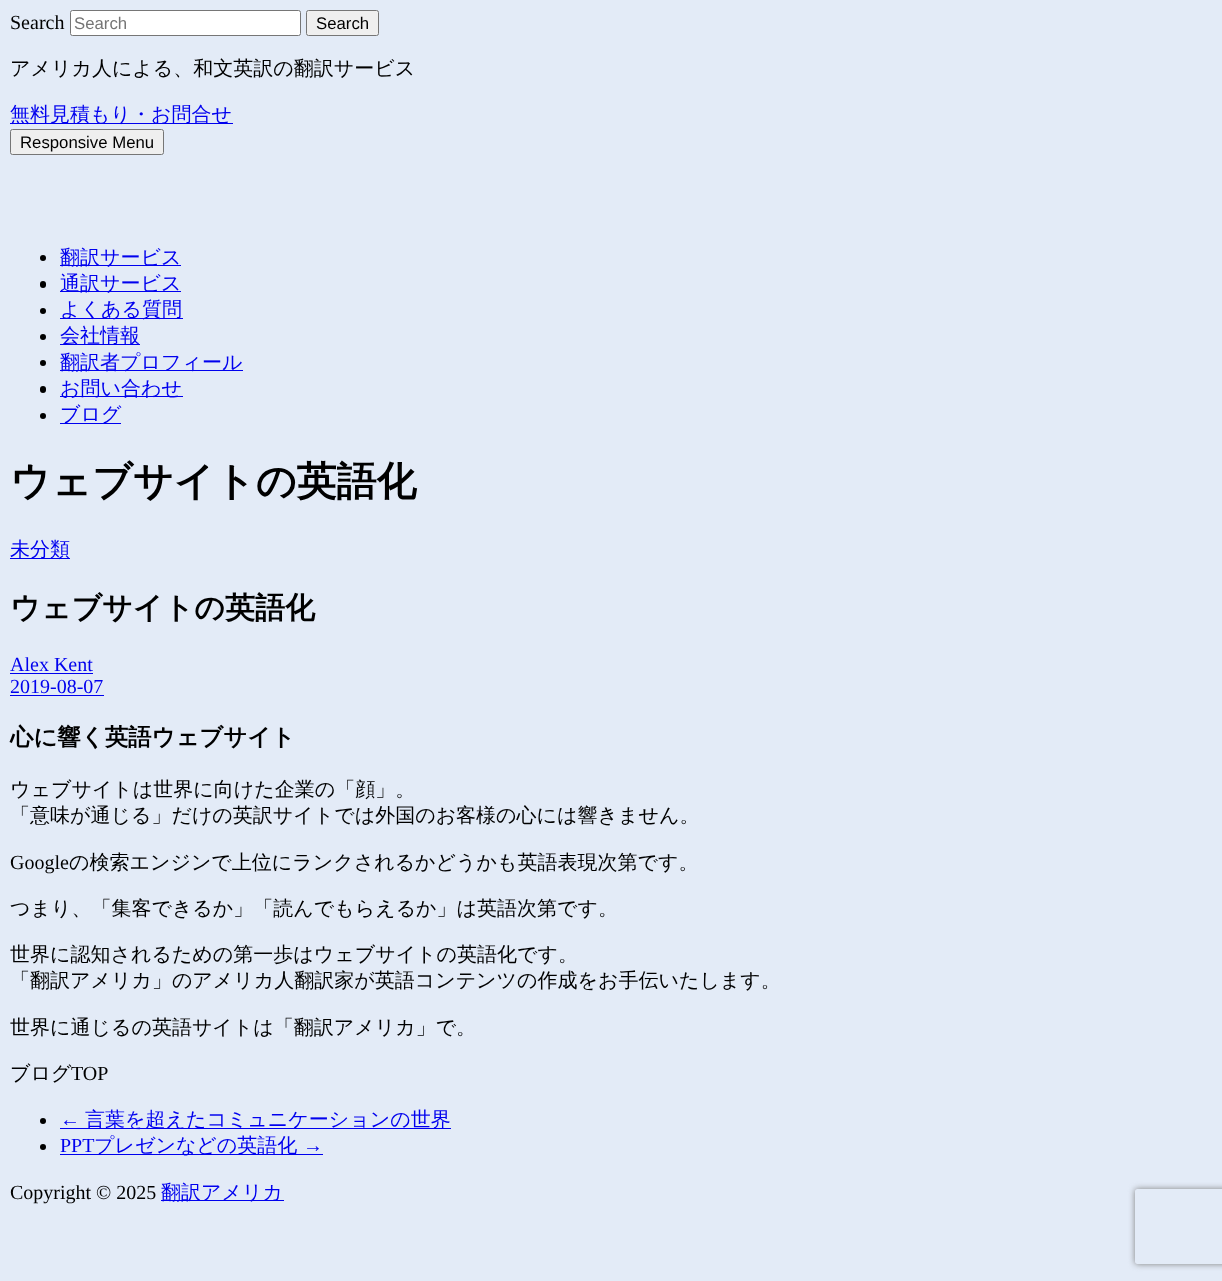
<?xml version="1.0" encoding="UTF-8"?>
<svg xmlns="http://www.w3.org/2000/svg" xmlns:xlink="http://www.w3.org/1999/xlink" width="1222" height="1281">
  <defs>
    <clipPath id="clip1"><path d="M 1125 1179 h 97 v 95 h -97 z m 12.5 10 h 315 c 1.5 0 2.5 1 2.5 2.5 v 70 c 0 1.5 -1 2.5 -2.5 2.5 h -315 c -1.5 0 -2.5 -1 -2.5 -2.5 v -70 c 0 -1.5 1 -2.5 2.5 -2.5 z" clip-rule="evenodd" /></clipPath>
  </defs>
  <rect width="100%" height="100%" fill="#e3ebf7" />
  <rect x="70.5" y="10.5" width="230" height="25" rx="2" fill="#ffffff" stroke="#767676" />
  <rect x="306.5" y="10.5" width="72" height="25" rx="2" fill="#efefef" stroke="#767676" />
  <rect x="10" y="123" width="223" height="1" fill="#0000ee" />
  <rect x="10.5" y="129.5" width="153" height="25" rx="2" fill="#efefef" stroke="#767676" />
  <circle cx="43" cy="258" r="3" fill="#000000" />
  <rect x="60" y="265" width="121" height="1" fill="#0000ee" />
  <rect x="40" y="281" width="6" height="7" rx="3" fill="#000000" />
  <rect x="60" y="291" width="121" height="1" fill="#0000ee" />
  <circle cx="43" cy="311" r="3" fill="#000000" />
  <rect x="60" y="318" width="123" height="1" fill="#0000ee" />
  <circle cx="43" cy="337" r="3" fill="#000000" />
  <rect x="60" y="344" width="80" height="1" fill="#0000ee" />
  <circle cx="43" cy="363" r="3" fill="#000000" />
  <rect x="60" y="370" width="183" height="1" fill="#0000ee" />
  <rect x="40" y="386" width="6" height="7" rx="3" fill="#000000" />
  <rect x="60" y="396" width="123" height="1" fill="#0000ee" />
  <circle cx="43" cy="416" r="3" fill="#000000" />
  <rect x="60" y="423" width="61" height="1" fill="#0000ee" />
  <rect x="10" y="558" width="60" height="1" fill="#0000ee" />
  <rect x="10" y="673" width="83" height="1" fill="#0000ee" />
  <rect x="10" y="695" width="94" height="1" fill="#0000ee" />
  <circle cx="43" cy="1121" r="3" fill="#000000" />
  <rect x="60" y="1128" width="391" height="1" fill="#0000ee" />
  <circle cx="43" cy="1147" r="3" fill="#000000" />
  <rect x="60" y="1154" width="263" height="1" fill="#0000ee" />
  <rect x="161" y="1200" width="123" height="1" fill="#0000ee" />
  <g clip-path="url(#clip1)">
    <rect x="1135" y="1189" width="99" height="75" rx="2.5" fill="#808080" filter="blur(3px)" />
  </g>
  <text x="10" y="29" style="font-family: Liberation Serif; font-size: 20px; fill: #000000">Search</text>
  <text x="74" y="29" style="font-family: Liberation Sans; font-size: 16.75px; fill: #757575">Search</text>
  <text x="316" y="29" style="font-family: Liberation Sans; font-size: 16.75px; fill: #000000">Search</text>
  <text x="10" y="75" style="font-family: WenQuanYi Zen Hei; font-size: 20px; font-weight: 500; fill: #000000">アメリカ人による、和文英訳の翻訳サービス</text>
  <text x="10" y="121" style="font-family: WenQuanYi Zen Hei; font-size: 20px; font-weight: 500; fill: #0000ee">無料見積もり・お問合せ</text>
  <text x="20" y="148" style="font-family: Liberation Sans; font-size: 16.75px; fill: #000000">Responsive Menu</text>
  <text x="60" y="264" style="font-family: WenQuanYi Zen Hei; font-size: 20px; font-weight: 500; fill: #0000ee">翻訳サービス</text>
  <text x="60" y="290" style="font-family: WenQuanYi Zen Hei; font-size: 20px; font-weight: 500; fill: #0000ee">通訳サービス</text>
  <text x="60" y="316" style="font-family: WenQuanYi Zen Hei; font-size: 20px; font-weight: 500; fill: #0000ee">よくある質問</text>
  <text x="60" y="342" style="font-family: WenQuanYi Zen Hei; font-size: 20px; font-weight: 500; fill: #0000ee">会社情報</text>
  <text x="60" y="369" style="font-family: WenQuanYi Zen Hei; font-size: 20px; font-weight: 500; fill: #0000ee">翻訳者プロフィール</text>
  <text x="60" y="395" style="font-family: WenQuanYi Zen Hei; font-size: 20px; font-weight: 500; fill: #0000ee">お問い合わせ</text>
  <text x="60" y="421" style="font-family: WenQuanYi Zen Hei; font-size: 20px; font-weight: 500; fill: #0000ee">ブログ</text>
  <text x="10" y="495" style="font-family: WenQuanYi Zen Hei; font-size: 40px; font-weight: bold; fill: #000000">ウェブサイトの英語化</text>
  <text x="10" y="556" style="font-family: WenQuanYi Zen Hei; font-size: 20px; font-weight: 500; fill: #0000ee">未分類</text>
  <text x="10" y="618" style="font-family: WenQuanYi Zen Hei; font-size: 30px; font-weight: bold; fill: #000000">ウェブサイトの英語化</text>
  <text x="10" y="671" style="font-family: Liberation Serif; font-size: 20px; fill: #0000ee">Alex Kent</text>
  <text x="10" y="693" style="font-family: Liberation Serif; font-size: 20px; fill: #0000ee">2019-08-07</text>
  <text x="10" y="745" style="font-family: WenQuanYi Zen Hei; font-size: 23.4px; font-weight: bold; fill: #000000">心に響く英語ウェブサイト</text>
  <text x="10" y="796" style="font-family: WenQuanYi Zen Hei; font-size: 20px; font-weight: 500; fill: #000000">ウェブサイトは世界に向けた企業の「顔」。</text>
  <text x="10" y="822" style="font-family: WenQuanYi Zen Hei; font-size: 20px; font-weight: 500; fill: #000000">「意味が通じる」だけの英訳サイトでは外国のお客様の心には響きません。</text>
  <text x="10" y="869" style="font-family: Liberation Serif; font-size: 20px; fill: #000000">Google</text>
  <text x="69" y="869" style="font-family: WenQuanYi Zen Hei; font-size: 20px; font-weight: 500; fill: #000000">の検索エンジンで上位にランクされるかどうかも英語表現次第です。</text>
  <text x="10" y="915" style="font-family: WenQuanYi Zen Hei; font-size: 20px; font-weight: 500; fill: #000000">つまり、「集客できるか」「読んでもらえるか」は英語次第です。</text>
  <text x="10" y="961" style="font-family: WenQuanYi Zen Hei; font-size: 20px; font-weight: 500; fill: #000000">世界に認知されるための第一歩はウェブサイトの英語化です。</text>
  <text x="10" y="987" style="font-family: WenQuanYi Zen Hei; font-size: 20px; font-weight: 500; fill: #000000">「翻訳アメリカ」のアメリカ人翻訳家が英語コンテンツの作成をお手伝いたします。</text>
  <text x="10" y="1034" style="font-family: WenQuanYi Zen Hei; font-size: 20px; font-weight: 500; fill: #000000">世界に通じるの英語サイトは「翻訳アメリカ」で。</text>
  <text x="10" y="1080" style="font-family: WenQuanYi Zen Hei; font-size: 20px; font-weight: 500; fill: #000000">ブログ</text>
  <text x="71" y="1080" style="font-family: Liberation Serif; font-size: 20px; fill: #000000">TOP</text>
  <text x="60" y="1126" style="font-family: Liberation Serif; font-size: 20px; fill: #0000ee">←</text>
  <text x="85" y="1126" style="font-family: WenQuanYi Zen Hei; font-size: 20px; font-weight: 500; fill: #0000ee">言葉を超えたコミュニケーションの世界</text>
  <text x="60" y="1152" style="font-family: Liberation Serif; font-size: 20px; fill: #0000ee">PPT</text>
  <text x="94" y="1152" style="font-family: WenQuanYi Zen Hei; font-size: 20px; font-weight: 500; fill: #0000ee">プレゼンなどの英語化</text>
  <text x="303" y="1152" style="font-family: Liberation Serif; font-size: 20px; fill: #0000ee">→</text>
  <text x="10" y="1199" style="font-family: Liberation Serif; font-size: 20px; fill: #000000">Copyright © 2025</text>
  <text x="161" y="1199" style="font-family: WenQuanYi Zen Hei; font-size: 20px; font-weight: 500; fill: #0000ee">翻訳アメリカ</text>
</svg>
